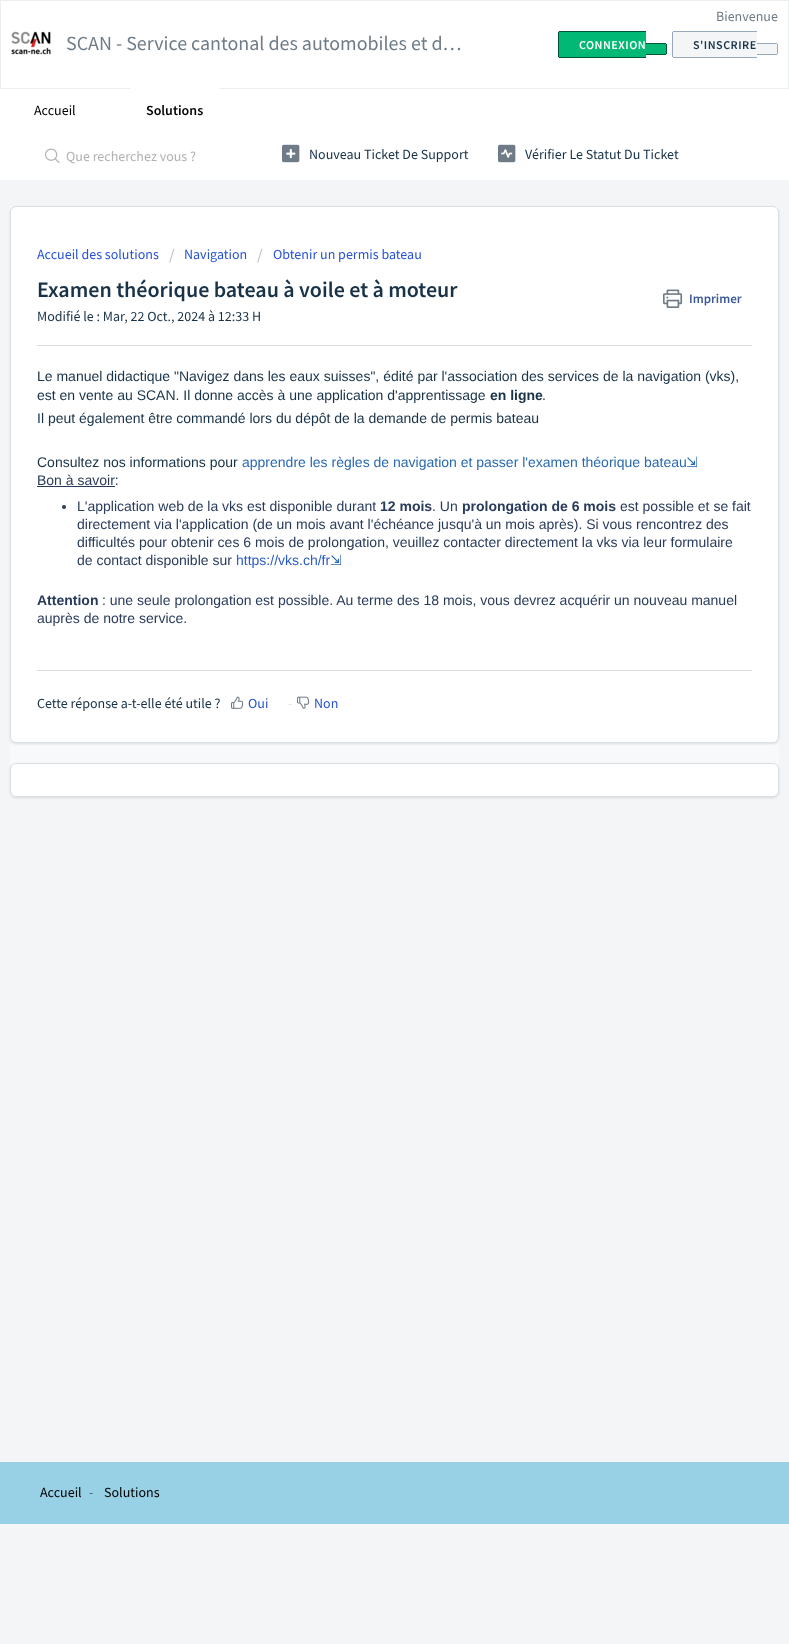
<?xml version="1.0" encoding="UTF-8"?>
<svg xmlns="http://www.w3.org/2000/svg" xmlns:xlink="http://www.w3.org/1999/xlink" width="789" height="1644">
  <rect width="100%" height="100%" fill="#f3f5f7" />
  <rect x="0.5" y="0.5" width="788" height="88" fill="#ffffff" stroke="#ebeef0" />
  <image x="11" y="31" width="40" height="24" xlink:href="image1.png" />
  <path d="M 560 31 h 86 v 27 h -86 c -1 0 -2 -1 -2 -2 v -23 c 0 -1 1 -2 2 -2 z" fill="#02b875" />
  <rect x="559" y="31" width="87" height="1" fill="#015335" />
  <rect x="559" y="57" width="87" height="1" fill="#015335" />
  <rect x="558" y="32" width="1" height="25" fill="#015335" />
  <path d="M 646 43 h 19 c 1 0 2 1 2 2 v 8 c 0 1 -1 2 -2 2 h -19 z" fill="#02b875" />
  <rect x="646" y="43" width="20" height="1" fill="#015335" />
  <rect x="666" y="44" width="1" height="10" fill="#015335" />
  <rect x="646" y="54" width="20" height="1" fill="#015335" />
  <path d="M 674 31 h 83 v 27 h -83 c -1 0 -2 -1 -2 -2 v -23 c 0 -1 1 -2 2 -2 z" fill="#f3f5f7" />
  <rect x="673" y="31" width="84" height="1" fill="#97a9ba" />
  <rect x="673" y="57" width="84" height="1" fill="#97a9ba" />
  <rect x="672" y="32" width="1" height="25" fill="#97a9ba" />
  <path d="M 757 43 h 19 c 1 0 2 1 2 2 v 8 c 0 1 -1 2 -2 2 h -19 z" fill="#f3f5f7" />
  <rect x="757" y="43" width="20" height="1" fill="#97a9ba" />
  <rect x="777" y="44" width="1" height="10" fill="#97a9ba" />
  <rect x="757" y="54" width="20" height="1" fill="#97a9ba" />
  <rect y="89" width="789" height="91" fill="#ffffff" />
  <rect x="130" y="88" width="90" height="1" fill="#ffffff" />
  <image x="45" y="148" width="15" height="15" xlink:href="image2.png" />
  <image x="282" y="144" width="18" height="19" xlink:href="image3.png" />
  <image x="498" y="144" width="18" height="19" xlink:href="image4.png" />
  <rect x="10" y="206" width="769" height="591" fill="#f8f9fa" />
  <rect x="10" y="207" width="769" height="537" rx="6" fill="#3f3f44" fill-opacity="0.15" filter="blur(1px)" />
  <rect x="10.5" y="206.5" width="768" height="536" rx="5.5" fill="#ffffff" stroke="#dadfe3" />
  <image x="663" y="289" width="20" height="19" xlink:href="image5.png" />
  <rect x="37" y="345" width="715" height="1" fill="#dcdcdc" />
  <rect x="37" y="486" width="78" height="1" fill="#293b5b" />
  <circle cx="64" cy="507" r="2" fill="#293b5b" />
  <rect x="37" y="670" width="715" height="1" fill="#dcdcdc" />
  <image x="231" y="696" width="13" height="13" xlink:href="image6.png" />
  <image x="297" y="696" width="13" height="13" xlink:href="image7.png" />
  <rect x="10" y="764" width="769" height="34" rx="6" fill="#3f3f44" fill-opacity="0.15" filter="blur(1px)" />
  <rect x="10.5" y="763.5" width="768" height="33" rx="5.5" fill="#ffffff" stroke="#dadfe3" />
  <rect y="1462" width="789" height="62" fill="#98d1e6" />
  <text x="66" y="50" style="font-family: Source Sans Pro; font-size: 20px; fill: #6f7c87">SCAN - Service cantonal des automobiles et d…</text>
  <text x="716" y="21" style="font-family: Source Sans Pro; font-size: 14px; fill: #6f7c87">Bienvenue</text>
  <text x="579" y="49" style="font-family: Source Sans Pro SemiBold; font-size: 12px; font-weight: 600; letter-spacing: 0.5px; fill: #ffffff">CONNEXION</text>
  <text x="693" y="49" style="font-family: Source Sans Pro SemiBold; font-size: 12px; font-weight: 600; letter-spacing: 0.5px; fill: #183247">S'INSCRIRE</text>
  <text x="34" y="115" style="font-family: Source Sans Pro; font-size: 14px; fill: #000000">Accueil</text>
  <text x="146" y="115" style="font-family: Source Sans Pro SemiBold; font-size: 14px; font-weight: 600; fill: #000000">Solutions</text>
  <text x="66" y="161" style="font-family: Source Sans Pro; font-size: 14px; fill: #b2b2b2">Que recherchez vous ?</text>
  <text x="309" y="159" style="font-family: Source Sans Pro; font-size: 14px; fill: #183247">Nouveau Ticket De Support</text>
  <text x="525" y="159" style="font-family: Source Sans Pro; font-size: 14px; fill: #183247">Vérifier Le Statut Du Ticket</text>
  <text x="37" y="259" style="font-family: Source Sans Pro; font-size: 14px; fill: #2753d7">Accueil des solutions</text>
  <text x="169" y="260" style="font-family: Source Sans Pro; font-size: 16px; fill: #bbbbbb">/</text>
  <text x="184" y="259" style="font-family: Source Sans Pro; font-size: 14px; fill: #2753d7">Navigation</text>
  <text x="257" y="260" style="font-family: Source Sans Pro; font-size: 16px; fill: #bbbbbb">/</text>
  <text x="273" y="259" style="font-family: Source Sans Pro; font-size: 14px; fill: #2753d7">Obtenir un permis bateau</text>
  <text x="37" y="297" style="font-family: Source Sans Pro SemiBold; font-size: 22px; font-weight: 600; fill: #183247">Examen théorique bateau à voile et à moteur</text>
  <text x="689" y="303" style="font-family: Source Sans Pro SemiBold; font-size: 13px; font-weight: 600; fill: #3b5998">Imprimer</text>
  <text x="37" y="321" style="font-family: Source Sans Pro; font-size: 14px; fill: #183247">Modifié le : Mar, 22 Oct., 2024 à 12:33 H</text>
  <text x="37" y="381" style="font-family: Liberation Sans; font-size: 14px; fill: #183247">Le manuel didactique "Navigez dans les eaux suisses", édité par l'association des services de la navigation (vks),</text>
  <text x="37" y="400" style="font-family: Liberation Sans; font-size: 14px; fill: #183247">est en vente au SCAN. Il donne accès à une application d'apprentissage</text>
  <text x="490" y="400" style="font-family: Liberation Sans; font-size: 14px; font-weight: bold; fill: #183247">en ligne</text>
  <text x="542" y="400" style="font-family: Liberation Sans; font-size: 14px; fill: #183247">.</text>
  <text x="37" y="423" style="font-family: Liberation Sans; font-size: 14px; fill: #183247">Il peut également être commandé lors du dépôt de la demande de permis bateau</text>
  <text x="37" y="467" style="font-family: Liberation Sans; font-size: 14px; fill: #183247">Consultez nos informations pour</text>
  <text x="242" y="467" style="font-family: Liberation Sans; font-size: 14px; fill: #2969b0">apprendre les règles de navigation et passer l'examen théorique bateau</text>
  <text x="686" y="467" style="font-family: DejaVu Sans; font-size: 14px; fill: #2969b0">⇲</text>
  <text x="37" y="485" style="font-family: Liberation Sans; font-size: 14px; fill: #293b5b">Bon à savoir:</text>
  <text x="77" y="511" style="font-family: Liberation Sans; font-size: 14px; fill: #293b5b">L'application web de la vks est disponible durant</text>
  <text x="380" y="511" style="font-family: Liberation Sans; font-size: 14px; font-weight: bold; fill: #293b5b">12 mois</text>
  <text x="432" y="511" style="font-family: Liberation Sans; font-size: 14px; fill: #293b5b">. Un</text>
  <text x="462" y="511" style="font-family: Liberation Sans; font-size: 14px; font-weight: bold; fill: #293b5b">prolongation de 6 mois</text>
  <text x="620" y="511" style="font-family: Liberation Sans; font-size: 14px; fill: #293b5b">est possible et se fait</text>
  <text x="77" y="529" style="font-family: Liberation Sans; font-size: 14px; fill: #293b5b">directement via l'application (de un mois avant l'échéance jusqu'à un mois après). Si vous rencontrez des</text>
  <text x="77" y="547" style="font-family: Liberation Sans; font-size: 14px; fill: #293b5b">difficultés pour obtenir ces 6 mois de prolongation, veuillez contacter directement la vks via leur formulaire</text>
  <text x="77" y="565" style="font-family: Liberation Sans; font-size: 14px; fill: #293b5b">de contact disponible sur</text>
  <text x="236" y="565" style="font-family: Liberation Sans; font-size: 14px; fill: #2c5cc5">https://vks.ch/fr</text>
  <text x="330" y="565" style="font-family: DejaVu Sans; font-size: 14px; fill: #2969b0">⇲</text>
  <text x="37" y="605" style="font-family: Liberation Sans; font-size: 14px; font-weight: bold; fill: #293b5b">Attention</text>
  <text x="102" y="605" style="font-family: Liberation Sans; font-size: 14px; fill: #293b5b">: une seule prolongation est possible. Au terme des 18 mois, vous devrez acquérir un nouveau manuel</text>
  <text x="37" y="623" style="font-family: Liberation Sans; font-size: 14px; fill: #293b5b">auprès de notre service.</text>
  <text x="37" y="708" style="font-family: Source Sans Pro; font-size: 14px; fill: #183247">Cette réponse a-t-elle été utile ?</text>
  <text x="248" y="708" style="font-family: Source Sans Pro; font-size: 14px; fill: #2753d7">Oui</text>
  <text x="288" y="708" style="font-family: Source Sans Pro; font-size: 14px; fill: #e5e5e5">-</text>
  <text x="314" y="708" style="font-family: Source Sans Pro; font-size: 14px; fill: #2753d7">Non</text>
  <text x="40" y="1497" style="font-family: Source Sans Pro; font-size: 14px; fill: #000000">Accueil</text>
  <text x="89" y="1497" style="font-family: Source Sans Pro; font-size: 14px; fill: #4c6973">-</text>
  <text x="104" y="1497" style="font-family: Source Sans Pro; font-size: 14px; fill: #000000">Solutions</text>
</svg>
